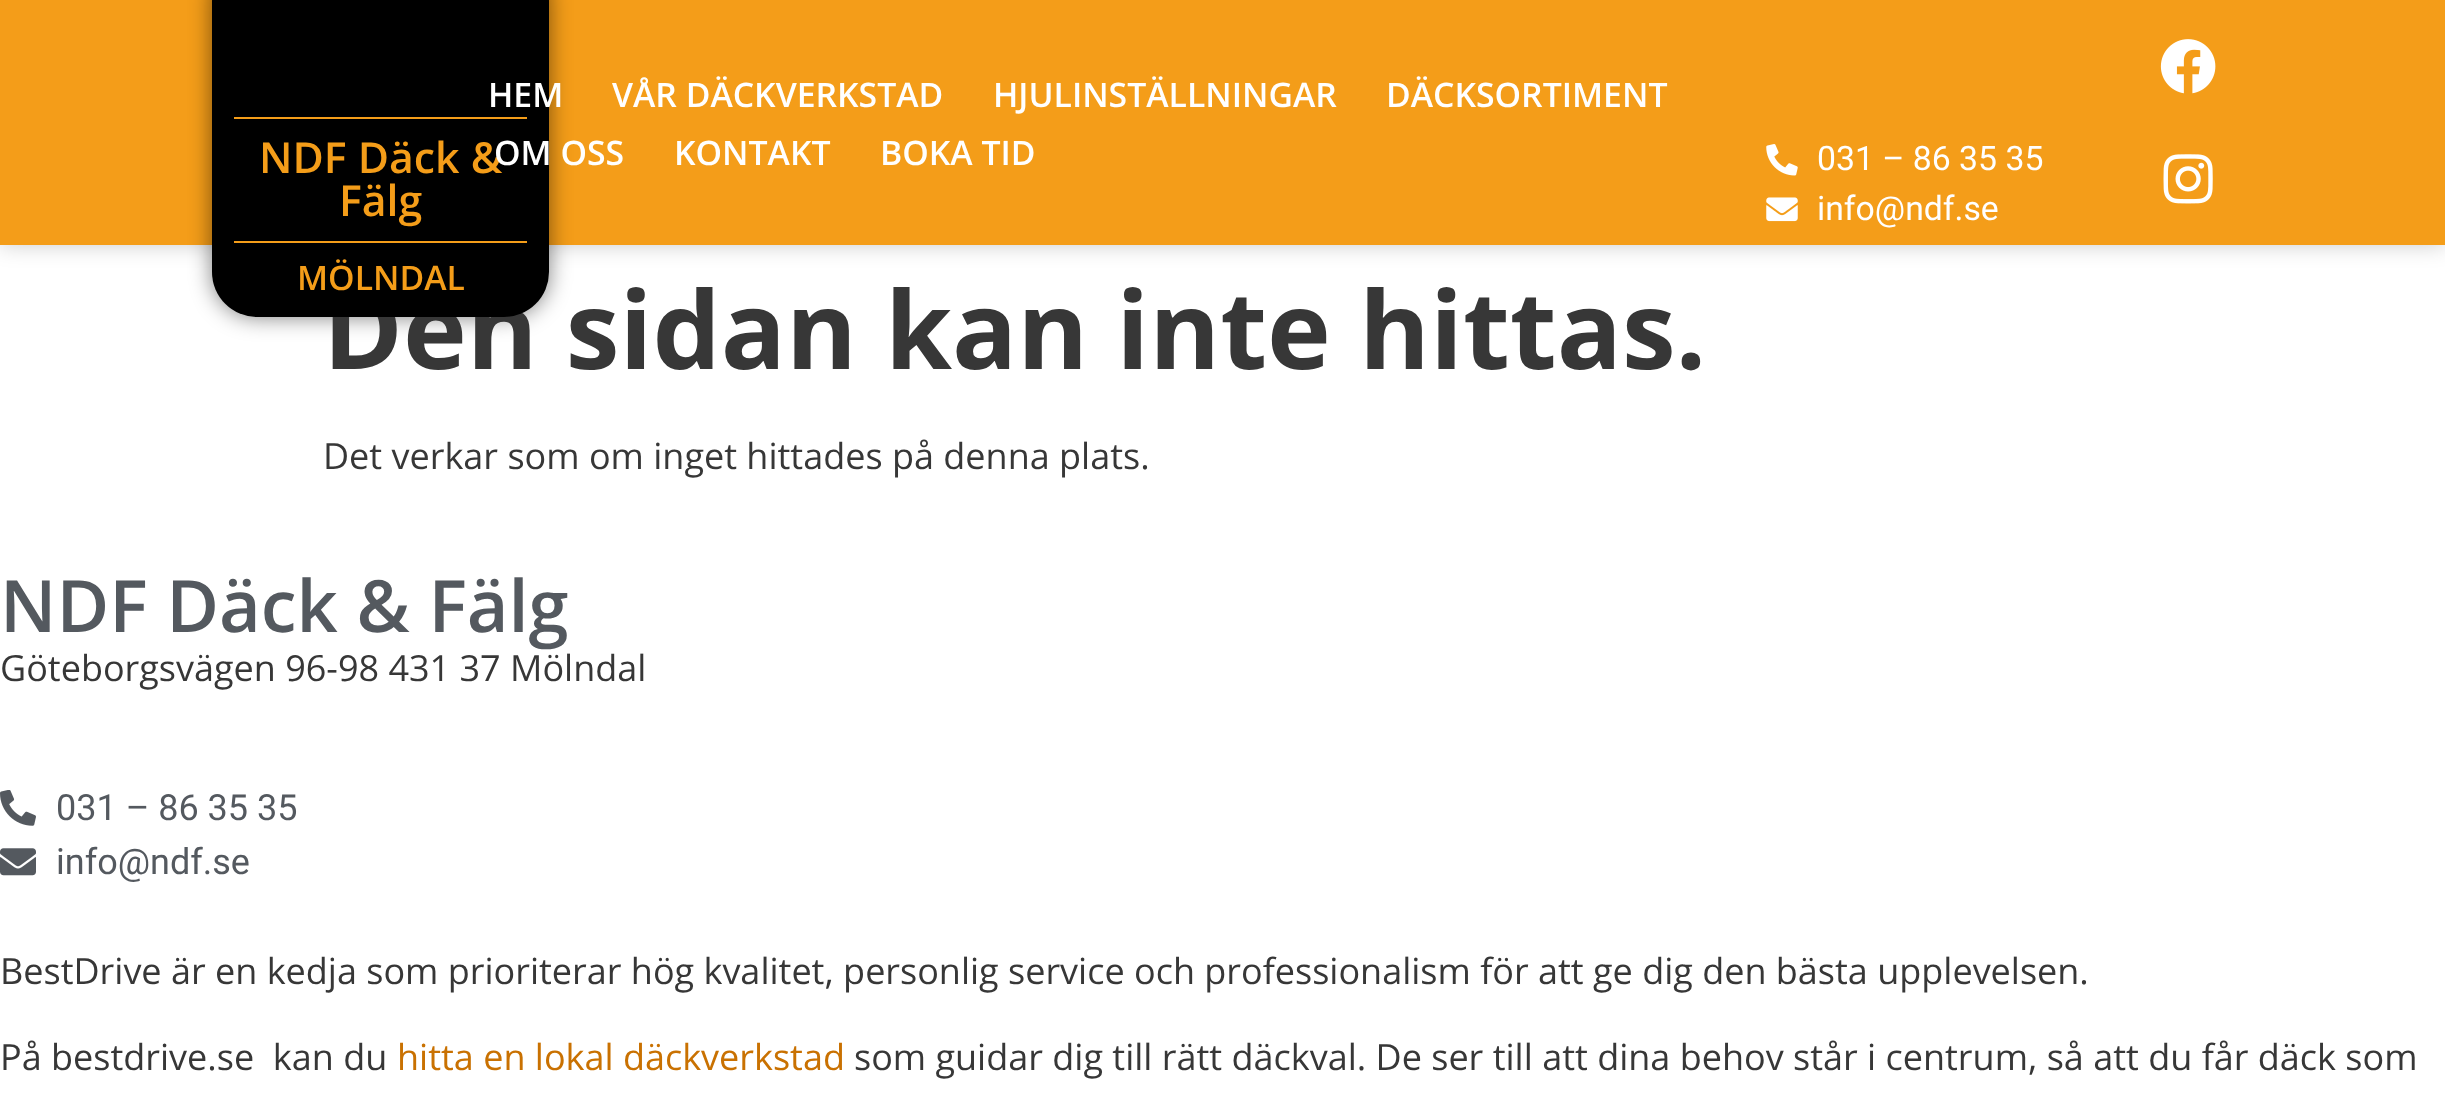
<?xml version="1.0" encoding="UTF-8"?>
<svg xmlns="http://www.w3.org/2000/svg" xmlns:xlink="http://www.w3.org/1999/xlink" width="2445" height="1105">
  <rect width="100%" height="100%" fill="#ffffff" />
  <rect width="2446" height="245" fill="#000000" fill-opacity="0.2" filter="blur(11px)" />
  <rect width="2445" height="245" fill="#f49d19" />
  <rect x="212" y="-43" width="337" height="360" rx="45" fill="#000000" fill-opacity="0.5" filter="blur(11px)" />
  <image x="1766" y="144" width="32" height="32" xlink:href="image1.png" />
  <image x="1766" y="197" width="32" height="25" xlink:href="image2.png" />
  <image x="2160" y="39" width="56" height="55" xlink:href="image3.png" />
  <image x="2163" y="154" width="50" height="50" xlink:href="image4.png" />
  <image x="0" y="790" width="36" height="36" xlink:href="image5.png" />
  <image x="0" y="848" width="36" height="28" xlink:href="image6.png" />
  <text x="612" y="107" style="font-family: Open Sans; font-size: 33.75px; font-weight: 600; fill: #ffffff">VÅR DÄCKVERKSTAD</text>
  <text x="993" y="107" style="font-family: Open Sans; font-size: 33.75px; font-weight: 600; fill: #ffffff">HJULINSTÄLLNINGAR</text>
  <text x="1386" y="107" style="font-family: Open Sans; font-size: 33.75px; font-weight: 600; fill: #ffffff">DÄCKSORTIMENT</text>
  <text x="674" y="165" style="font-family: Open Sans; font-size: 33.75px; font-weight: 600; fill: #ffffff">KONTAKT</text>
  <text x="880" y="165" style="font-family: Open Sans; font-size: 33.75px; font-weight: 600; fill: #ffffff">BOKA TID</text>
  <text x="1817" y="170" style="font-family: Roboto; font-size: 33.75px; fill: #ffffff">031 – 86 35 35</text>
  <text x="1817" y="220" style="font-family: Roboto; font-size: 33.75px; fill: #ffffff">info@ndf.se</text>
  <text x="323" y="369" style="font-family: Open Sans; font-size: 108px; font-weight: bold; fill: #373737">Den sidan kan inte hittas.</text>
  <rect x="212" y="-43" width="337" height="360" rx="45" fill="#000000" />
  <text x="259" y="173" style="font-family: Open Sans; font-size: 42.75px; font-weight: 600; fill: #f49d19">NDF Däck &amp;</text>
  <text x="494" y="165" style="font-family: Open Sans; font-size: 33.75px; font-weight: 600; fill: #ffffff">OM OSS</text>
  <text x="488" y="107" style="font-family: Open Sans; font-size: 33.75px; font-weight: 600; fill: #ffffff">HEM</text>
  <text x="297" y="290" style="font-family: Open Sans; font-size: 33.75px; font-weight: 600; fill: #f49d19">MÖLNDAL</text>
  <rect x="234" y="241" width="293" height="2" fill="#f49d19" />
  <text x="339" y="216" style="font-family: Open Sans; font-size: 42.75px; font-weight: 600; fill: #f49d19">Fälg</text>
  <rect x="234" y="117" width="293" height="2" fill="#f49d19" />
  <text x="323" y="469" style="font-family: Open Sans; font-size: 36px; fill: #373737">Det verkar som om inget hittades på denna plats.</text>
  <text x="0" y="632" style="font-family: Open Sans; font-size: 72px; font-weight: 600; fill: #54595f">NDF Däck &amp; Fälg</text>
  <text x="0" y="681" style="font-family: Open Sans; font-size: 36px; fill: #373737">Göteborgsvägen 96-98 431 37 Mölndal</text>
  <text x="56" y="820" style="font-family: Roboto; font-size: 36px; fill: #54595f">031 – 86 35 35</text>
  <text x="56" y="874" style="font-family: Roboto; font-size: 36px; fill: #54595f">info@ndf.se</text>
  <text x="0" y="984" style="font-family: Open Sans; font-size: 36px; fill: #373737">BestDrive är en kedja som prioriterar hög kvalitet, personlig service och professionalism för att ge dig den bästa upplevelsen.</text>
  <text x="0" y="1070" style="font-family: Open Sans; font-size: 36px; fill: #373737" xml:space="preserve">På bestdrive.se  kan du</text>
  <text x="397" y="1070" style="font-family: Open Sans; font-size: 36px; fill: #c97101">hitta en lokal däckverkstad</text>
  <text x="854" y="1070" style="font-family: Open Sans; font-size: 36px; fill: #373737">som guidar dig till rätt däckval. De ser till att dina behov står i centrum, så att du får däck som</text>
</svg>
